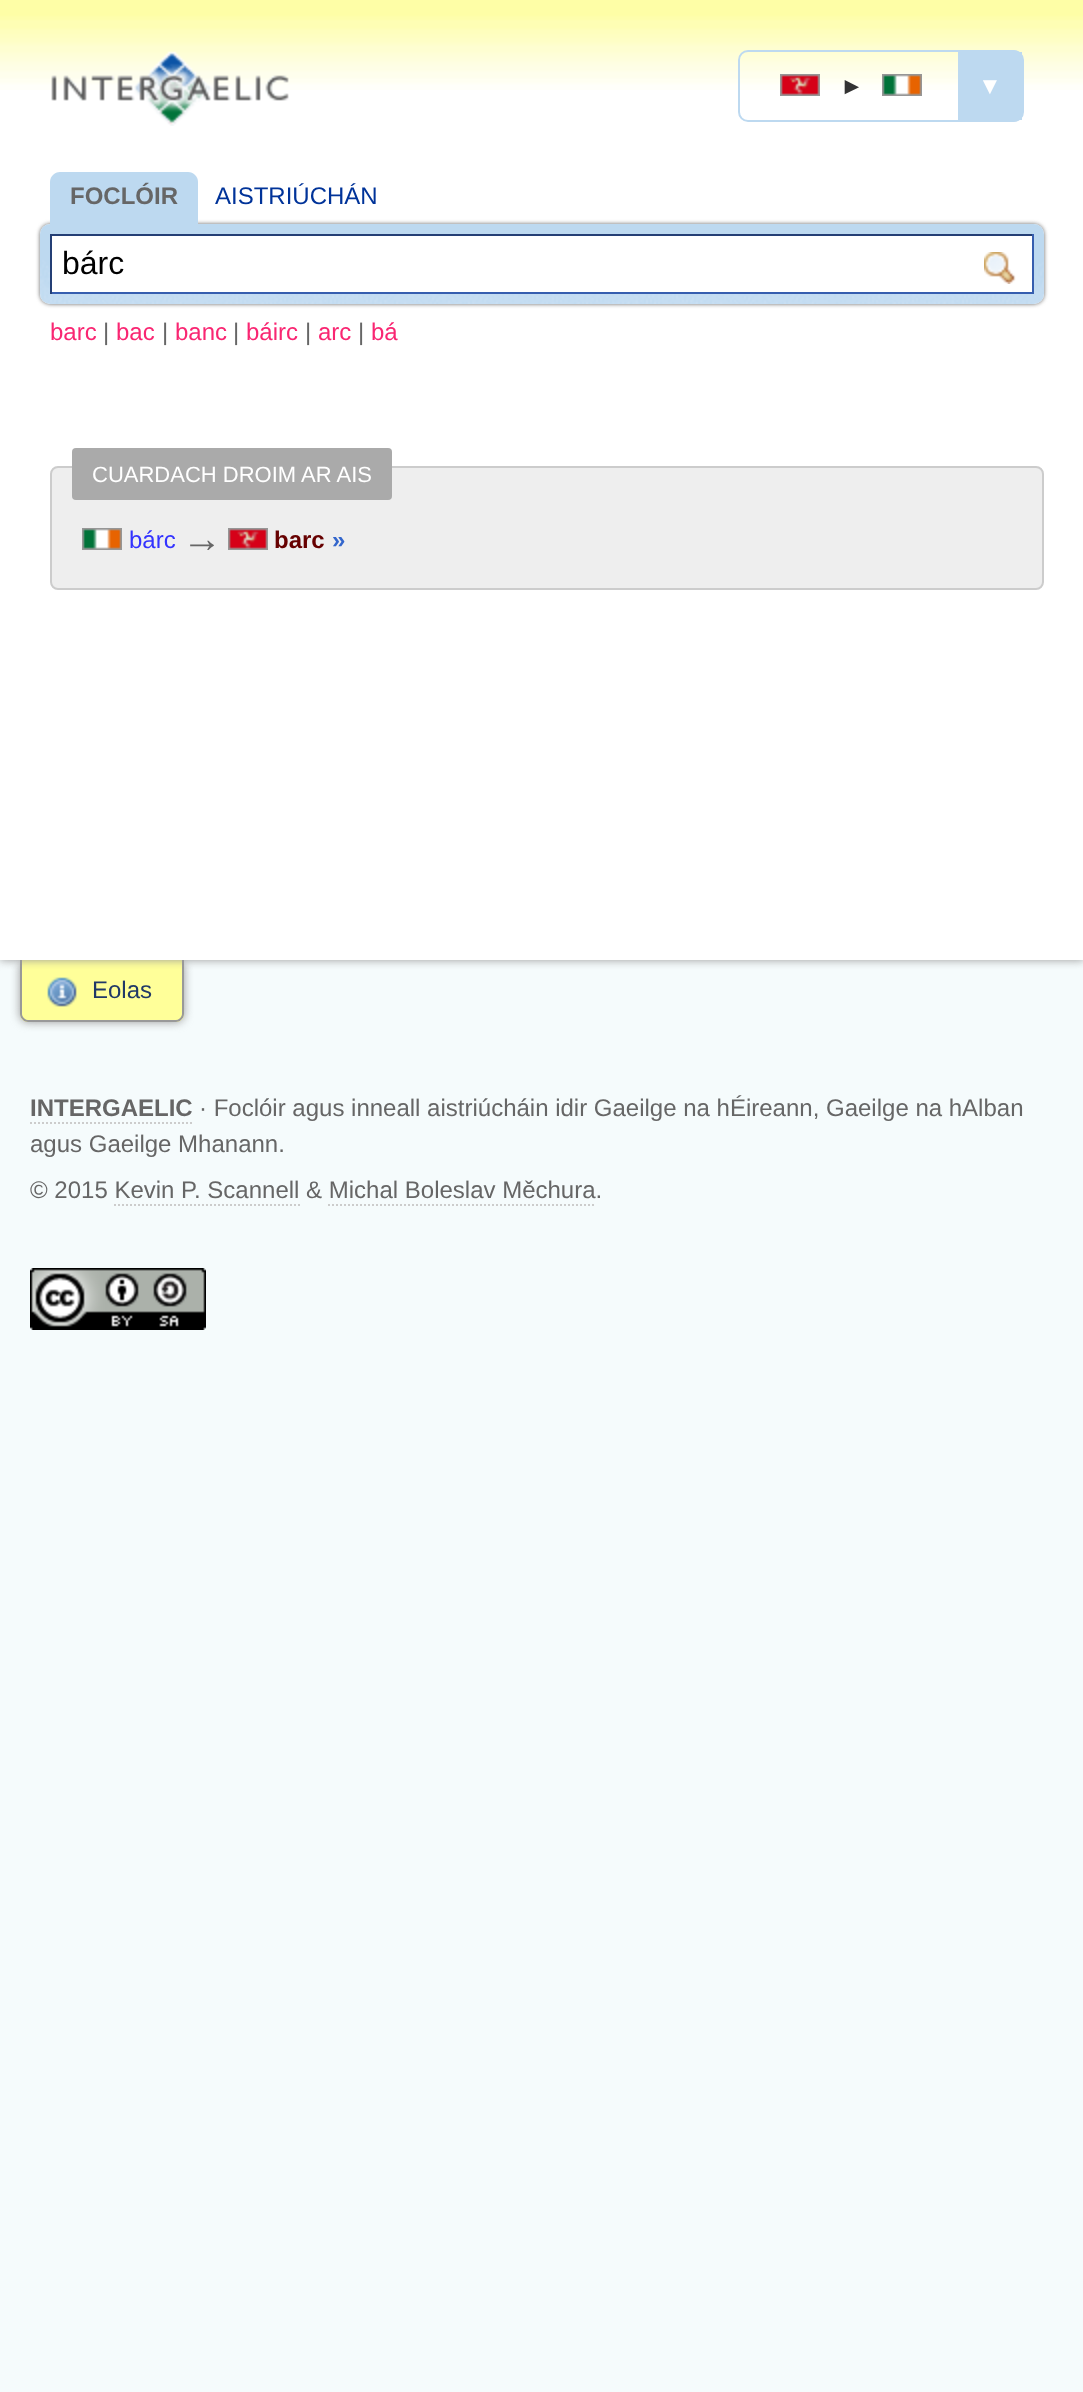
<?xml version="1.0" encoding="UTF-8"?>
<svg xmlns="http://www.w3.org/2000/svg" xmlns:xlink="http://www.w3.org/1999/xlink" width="1083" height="2392">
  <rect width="100%" height="100%" fill="#f5fbfc" />
  <rect x="20" y="960" width="164" height="62" rx="8" fill="#999999" filter="blur(5px)" />
  <path d="M 20 960 h 164 v 54 c 0 4.5 -3.5 8 -8 8 h -148 c -4.5 0 -8 -3.5 -8 -8 z" fill="#ffff99" />
  <image x="47" y="977" width="30" height="30" xlink:href="image7.png" />
  <path d="M 20 960 h 164 v 54 c 0 4 -4 8 -8 8 h -148 c -4 0 -8 -4 -8 -8 z m 2 0 h 160 v 54 c 0 3 -3 6 -6 6 h -148 c -3 0 -6 -3 -6 -6 z" fill="#999999" fill-rule="evenodd" />
  <rect width="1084" height="960" fill="#999999" filter="blur(5px)" />
  <rect y="90" width="1083" height="870" fill="#ffffff" />
  <image x="0" y="0" width="1083" height="90" xlink:href="image1.png" />
  <image x="51" y="51" width="238" height="75" xlink:href="image2.png" />
  <rect x="739" y="51" width="284" height="70" rx="9" fill="none" stroke="#bdd9f0" stroke-width="2" />
  <image x="780" y="74" width="40" height="22" xlink:href="image3.png" />
  <image x="882" y="74" width="40" height="22" xlink:href="image4.png" />
  <rect x="958" y="52" width="64" height="68" fill="#bdd9f0" />
  <rect x="40" y="224" width="1004" height="80" rx="10" fill="#666666" filter="blur(2px)" />
  <rect x="40" y="224" width="1004" height="80" rx="10" fill="#ffffff" />
  <image x="40" y="224" width="1004" height="80" xlink:href="image5.png" />
  <path d="M 60 172 h 128 c 5.5 0 10 4.5 10 10 v 48 h -148 v -48 c 0 -5.5 4.5 -10 10 -10 z" fill="#bdd9f0" />
  <rect x="52" y="236" width="980" height="56" fill="#ffffff" />
  <rect x="50" y="234" width="984" height="2" fill="#243f75" />
  <rect x="1032" y="234" width="2" height="60" fill="#365eaf" />
  <rect x="50" y="292" width="984" height="2" fill="#365eaf" />
  <rect x="50" y="234" width="2" height="60" fill="#243f75" />
  <image x="984" y="252" width="32" height="32" xlink:href="image6.png" />
  <rect x="51" y="467" width="992" height="122" rx="7" fill="#eeeeee" stroke="#cccccc" stroke-width="2" />
  <rect x="72" y="448" width="320" height="52" rx="4" fill="#aaaaaa" />
  <image x="82" y="528" width="40" height="22" xlink:href="image4.png" />
  <image x="228" y="528" width="40" height="22" xlink:href="image3.png" />
  <path d="M 30 1123 h 162" fill="none" stroke="#cccccc" stroke-width="2" stroke-dasharray="2 2" />
  <path d="M 114 1205 h 186" fill="none" stroke="#cccccc" stroke-width="2" stroke-dasharray="2 2" />
  <path d="M 328 1205 h 268" fill="none" stroke="#cccccc" stroke-width="2" stroke-dasharray="2 2" />
  <image x="30" y="1268" width="176" height="62" xlink:href="image8.png" />
  <text x="840" y="94" style="font-family: Liberation Sans; font-size: 24px; fill: #333333">►</text>
  <text x="978" y="94" style="font-family: Liberation Sans; font-size: 24px; fill: #ffffff">▼</text>
  <text x="70" y="204" style="font-family: Liberation Sans; font-size: 24px; font-weight: bold; fill: #666666">FOCLÓIR</text>
  <text x="215" y="204" style="font-family: Liberation Sans; font-size: 24px; fill: #003399">AISTRIÚCHÁN</text>
  <text x="62" y="274" style="font-family: Liberation Sans; font-size: 32px; fill: #000000">bárc</text>
  <text x="50" y="340" style="font-family: Liberation Sans; font-size: 24px; fill: #f92672">barc</text>
  <text x="103" y="340" style="font-family: Liberation Sans; font-size: 24px; fill: #666666">|</text>
  <text x="116" y="340" style="font-family: Liberation Sans; font-size: 24px; fill: #f92672">bac</text>
  <text x="162" y="340" style="font-family: Liberation Sans; font-size: 24px; fill: #666666">|</text>
  <text x="175" y="340" style="font-family: Liberation Sans; font-size: 24px; fill: #f92672">banc</text>
  <text x="233" y="340" style="font-family: Liberation Sans; font-size: 24px; fill: #666666">|</text>
  <text x="246" y="340" style="font-family: Liberation Sans; font-size: 24px; fill: #f92672">báirc</text>
  <text x="305" y="340" style="font-family: Liberation Sans; font-size: 24px; fill: #666666">|</text>
  <text x="318" y="340" style="font-family: Liberation Sans; font-size: 24px; fill: #f92672">arc</text>
  <text x="358" y="340" style="font-family: Liberation Sans; font-size: 24px; fill: #666666">|</text>
  <text x="371" y="340" style="font-family: Liberation Sans; font-size: 24px; fill: #f92672">bá</text>
  <text x="92" y="482" style="font-family: Liberation Sans; font-size: 22px; fill: #ffffff">CUARDACH DROIM AR AIS</text>
  <text x="129" y="548" style="font-family: Liberation Sans; font-size: 24px; fill: #3333ff">bárc</text>
  <text x="182" y="552" style="font-family: Liberation Sans; font-size: 40px; fill: #666666">→</text>
  <text x="274" y="548" style="font-family: Liberation Sans; font-size: 24px; font-weight: bold; fill: #660000">barc</text>
  <text x="332" y="548" style="font-family: Liberation Sans; font-size: 24px; font-weight: bold; fill: #3366cc">»</text>
  <text x="92" y="998" style="font-family: Liberation Sans; font-size: 24px; fill: #213967">Eolas</text>
  <text x="30" y="1116" style="font-family: Liberation Sans; font-size: 24px; font-weight: bold; fill: #666666">INTERGAELIC</text>
  <text x="199" y="1116" style="font-family: Liberation Sans; font-size: 24px; fill: #666666">· Foclóir agus inneall aistriúcháin idir Gaeilge na hÉireann, Gaeilge na hAlban</text>
  <text x="30" y="1152" style="font-family: Liberation Sans; font-size: 24px; fill: #666666">agus Gaeilge Mhanann.</text>
  <text x="30" y="1198" style="font-family: Liberation Sans; font-size: 24px; fill: #666666">© 2015 Kevin P. Scannell &amp; Michal Boleslav Měchura.</text>
</svg>
